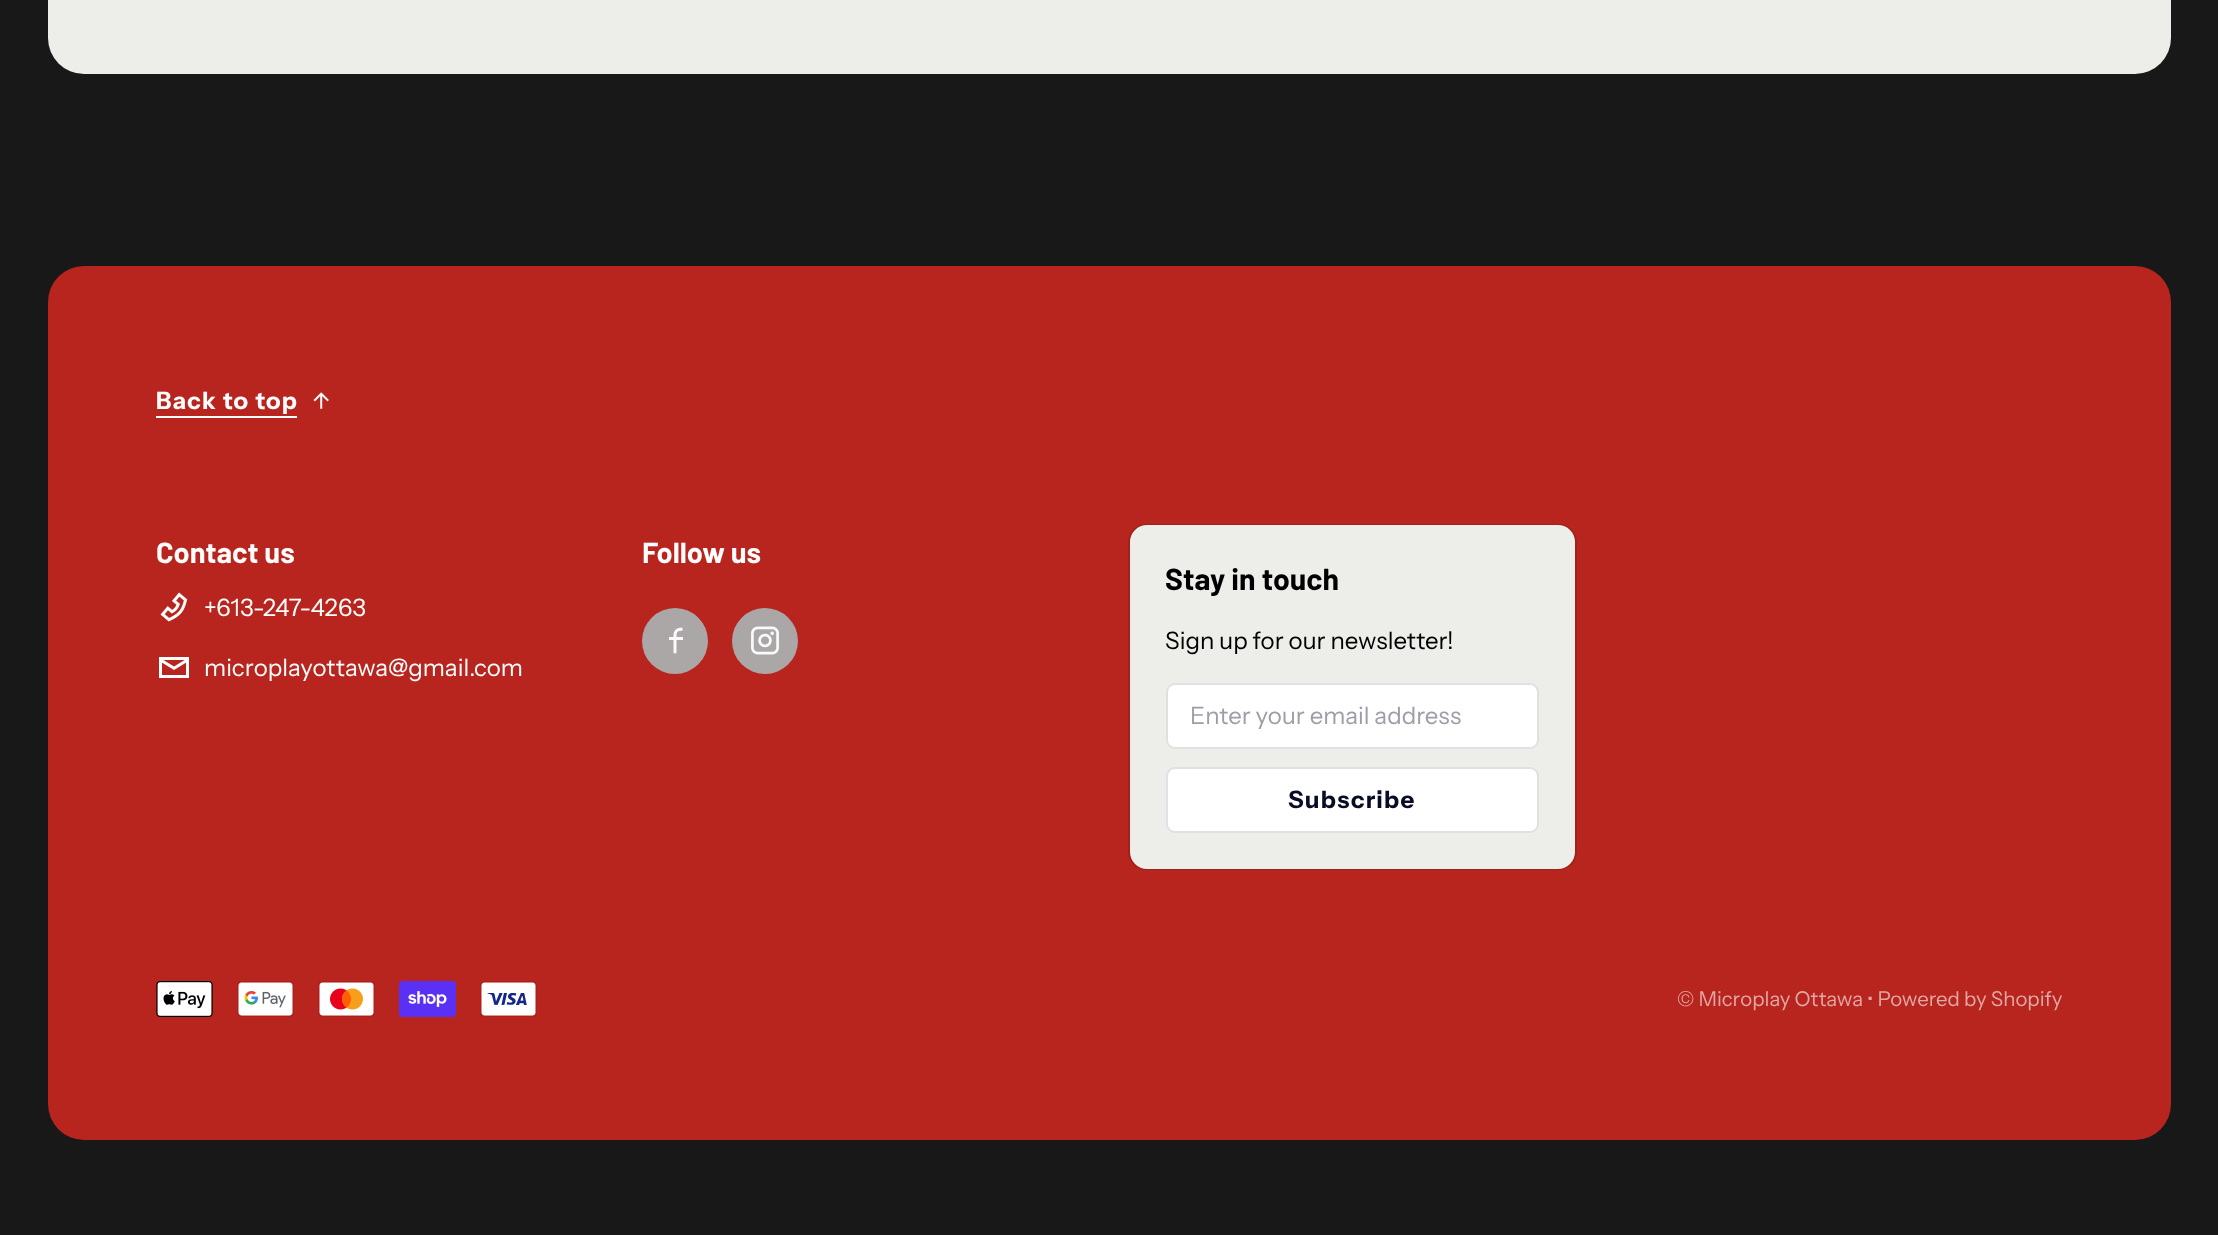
<?xml version="1.0" encoding="UTF-8"?>
<svg xmlns="http://www.w3.org/2000/svg" xmlns:xlink="http://www.w3.org/1999/xlink" width="2218" height="1235">
  <rect width="100%" height="100%" fill="#181818" />
  <rect x="48" y="-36" width="2123" height="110" rx="36" fill="#edede9" />
  <rect x="48" y="266" width="2123" height="874" rx="36" fill="#b7251e" />
  <rect x="156" y="416" width="141" height="2" fill="#fdfdfd" />
  <image x="313" y="392" width="16" height="17" xlink:href="image1.png" />
  <image x="160" y="592" width="28" height="30" xlink:href="image2.png" />
  <image x="159" y="657" width="30" height="21" xlink:href="image3.png" />
  <circle cx="675" cy="641" r="33" fill="#aca7a7" />
  <image x="669" y="627" width="14" height="27" xlink:href="image4.png" />
  <circle cx="765" cy="641" r="33" fill="#aca7a7" />
  <image x="751" y="626" width="28" height="29" xlink:href="image5.png" />
  <rect x="1129" y="525" width="447" height="344" rx="17" fill="none" stroke="#a1211a" stroke-width="2" />
  <rect x="1130" y="525" width="445" height="344" rx="17" fill="#edede9" />
  <rect x="1166" y="683" width="373" height="66" rx="9" fill="#ffffff" />
  <rect x="1167" y="684" width="371" height="64" rx="8" fill="none" stroke="#000000" stroke-opacity="0.12" stroke-width="2" />
  <rect x="1166" y="767" width="373" height="66" rx="9" fill="#ffffff" />
  <rect x="1167" y="768" width="371" height="64" rx="8" fill="none" stroke="#090c26" stroke-opacity="0.12" stroke-width="2" />
  <image x="156" y="981" width="57" height="36" xlink:href="image6.png" />
  <image x="237" y="981" width="57" height="36" xlink:href="image7.png" />
  <image x="318" y="981" width="57" height="36" xlink:href="image8.png" />
  <image x="399" y="981" width="57" height="36" xlink:href="image9.png" />
  <image x="480" y="981" width="57" height="36" xlink:href="image10.png" />
  <text x="156" y="409" style="font-family: Instrument Sans; font-size: 24px; font-weight: bold; letter-spacing: 1.25px; fill: #fdfdfd">Back to top</text>
  <text x="156" y="563" style="font-family: Barlow; font-size: 29px; font-weight: bold; fill: #fdfdfd">Contact us</text>
  <text x="204" y="616" style="font-family: Instrument Sans; font-size: 24px; fill: #fdfdfd">+613-247-4263</text>
  <text x="204" y="676" style="font-family: Instrument Sans; font-size: 24px; fill: #fdfdfd">microplayottawa@gmail.com</text>
  <text x="642" y="563" style="font-family: Barlow; font-size: 29px; font-weight: bold; fill: #fdfdfd">Follow us</text>
  <text x="1165" y="590" style="font-family: Barlow; font-size: 30.25px; font-weight: bold; fill: #000000">Stay in touch</text>
  <text x="1165" y="649" style="font-family: Instrument Sans; font-size: 24px; fill: #000000">Sign up for our newsletter!</text>
  <text x="1190" y="724" style="font-family: Instrument Sans; font-size: 24px; fill: #9d9ea8">Enter your email address</text>
  <text x="1288" y="808" style="font-family: Instrument Sans; font-size: 24px; font-weight: bold; letter-spacing: 1.25px; fill: #090c26">Subscribe</text>
  <text x="1677" y="1006" style="font-family: Instrument Sans; font-size: 20.4px; fill: #e1a7a4">© Microplay Ottawa • Powered by Shopify</text>
</svg>
